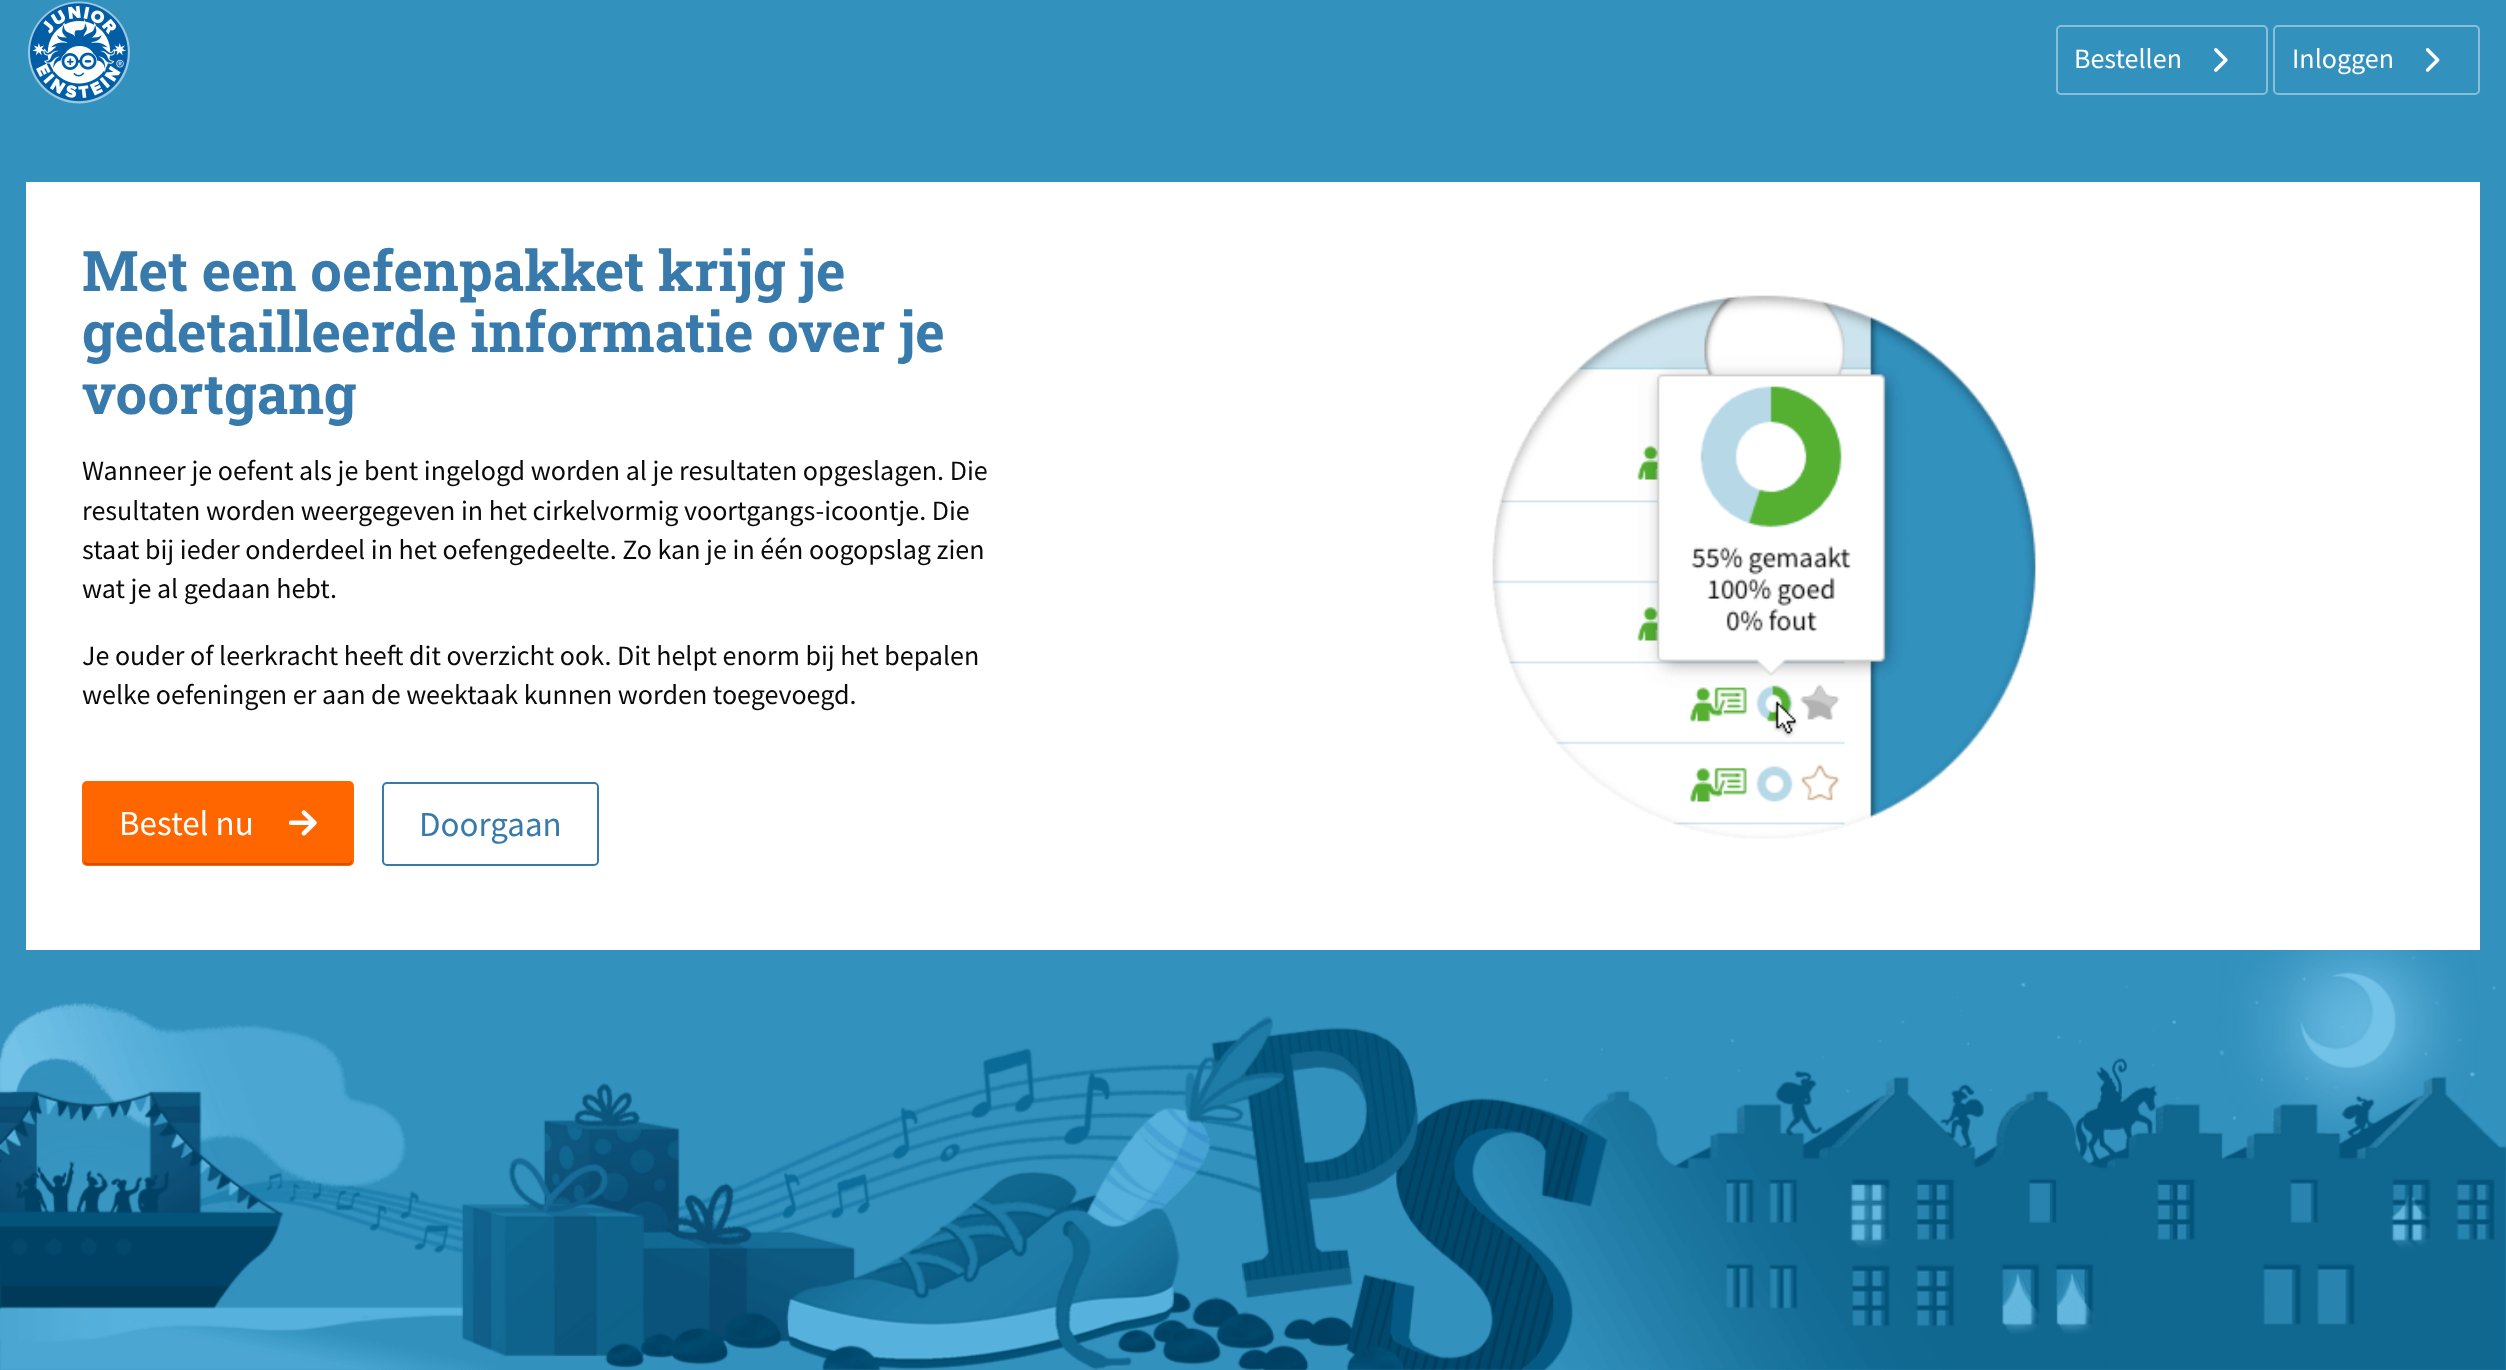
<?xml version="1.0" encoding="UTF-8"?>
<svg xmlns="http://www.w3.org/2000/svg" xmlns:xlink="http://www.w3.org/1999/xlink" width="2506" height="1370">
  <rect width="100%" height="100%" fill="#3391bd" />
  <image x="0" y="950" width="2506" height="420" xlink:href="image1.png" />
  <image x="28" y="1" width="102" height="103" xlink:href="image2.png" />
  <rect x="2057" y="26" width="210" height="68" rx="4" fill="none" stroke="#87bed8" stroke-width="2" />
  <image x="2214" y="48" width="14" height="24" xlink:href="image3.png" />
  <rect x="2274" y="26" width="205" height="68" rx="4" fill="none" stroke="#87bed8" stroke-width="2" />
  <image x="2425" y="48" width="15" height="24" xlink:href="image4.png" />
  <rect x="26" y="182" width="2454" height="768" fill="#ffffff" />
  <rect x="82" y="781" width="272" height="85" rx="5" fill="#ff6600" />
  <path d="M 84 859 c 0 3 0 6 4 6 h 261 c 3 -1 3 -3 3 -6 c 0 2 -2 4 -4 4 h -260 c -2 0 -4 -2 -4 -4 z" fill="#cc5200" />
  <image x="289" y="810" width="28" height="26" xlink:href="image5.png" />
  <rect x="383" y="783" width="215" height="82" rx="4" fill="none" stroke="#377aab" stroke-width="2" />
  <image x="1492" y="295" width="544" height="544" xlink:href="image6.png" />
  <text x="2074" y="68" style="font-family: Source Sans Pro; font-size: 28px; fill: #fefefe">Bestellen</text>
  <text x="2292" y="68" style="font-family: Source Sans Pro; font-size: 28px; fill: #fefefe">Inloggen</text>
  <text x="82" y="291" style="font-family: Roboto Slab; font-size: 56px; font-weight: bold; fill: #377aab">Met een oefenpakket krijg je</text>
  <text x="82" y="352" style="font-family: Roboto Slab; font-size: 56px; font-weight: bold; fill: #377aab">gedetailleerde informatie over je</text>
  <text x="82" y="414" style="font-family: Roboto Slab; font-size: 56px; font-weight: bold; fill: #377aab">voortgang</text>
  <text x="82" y="480" style="font-family: Source Sans Pro; font-size: 28px; fill: #0a0a0a">Wanneer je oefent als je bent ingelogd worden al je resultaten opgeslagen. Die</text>
  <text x="82" y="520" style="font-family: Source Sans Pro; font-size: 28px; fill: #0a0a0a">resultaten worden weergegeven in het cirkelvormig voortgangs-icoontje. Die</text>
  <text x="82" y="559" style="font-family: Source Sans Pro; font-size: 28px; fill: #0a0a0a">staat bij ieder onderdeel in het oefengedeelte. Zo kan je in één oogopslag zien</text>
  <text x="82" y="598" style="font-family: Source Sans Pro; font-size: 28px; fill: #0a0a0a">wat je al gedaan hebt.</text>
  <text x="82" y="665" style="font-family: Source Sans Pro; font-size: 28px; fill: #0a0a0a">Je ouder of leerkracht heeft dit overzicht ook. Dit helpt enorm bij het bepalen</text>
  <text x="82" y="704" style="font-family: Source Sans Pro; font-size: 28px; fill: #0a0a0a">welke oefeningen er aan de weektaak kunnen worden toegevoegd.</text>
  <text x="119" y="835" style="font-family: Source Sans Pro; font-size: 35px; fill: #fefefe">Bestel nu</text>
  <text x="419" y="836" style="font-family: Source Sans Pro; font-size: 35px; fill: #377aab">Doorgaan</text>
</svg>
